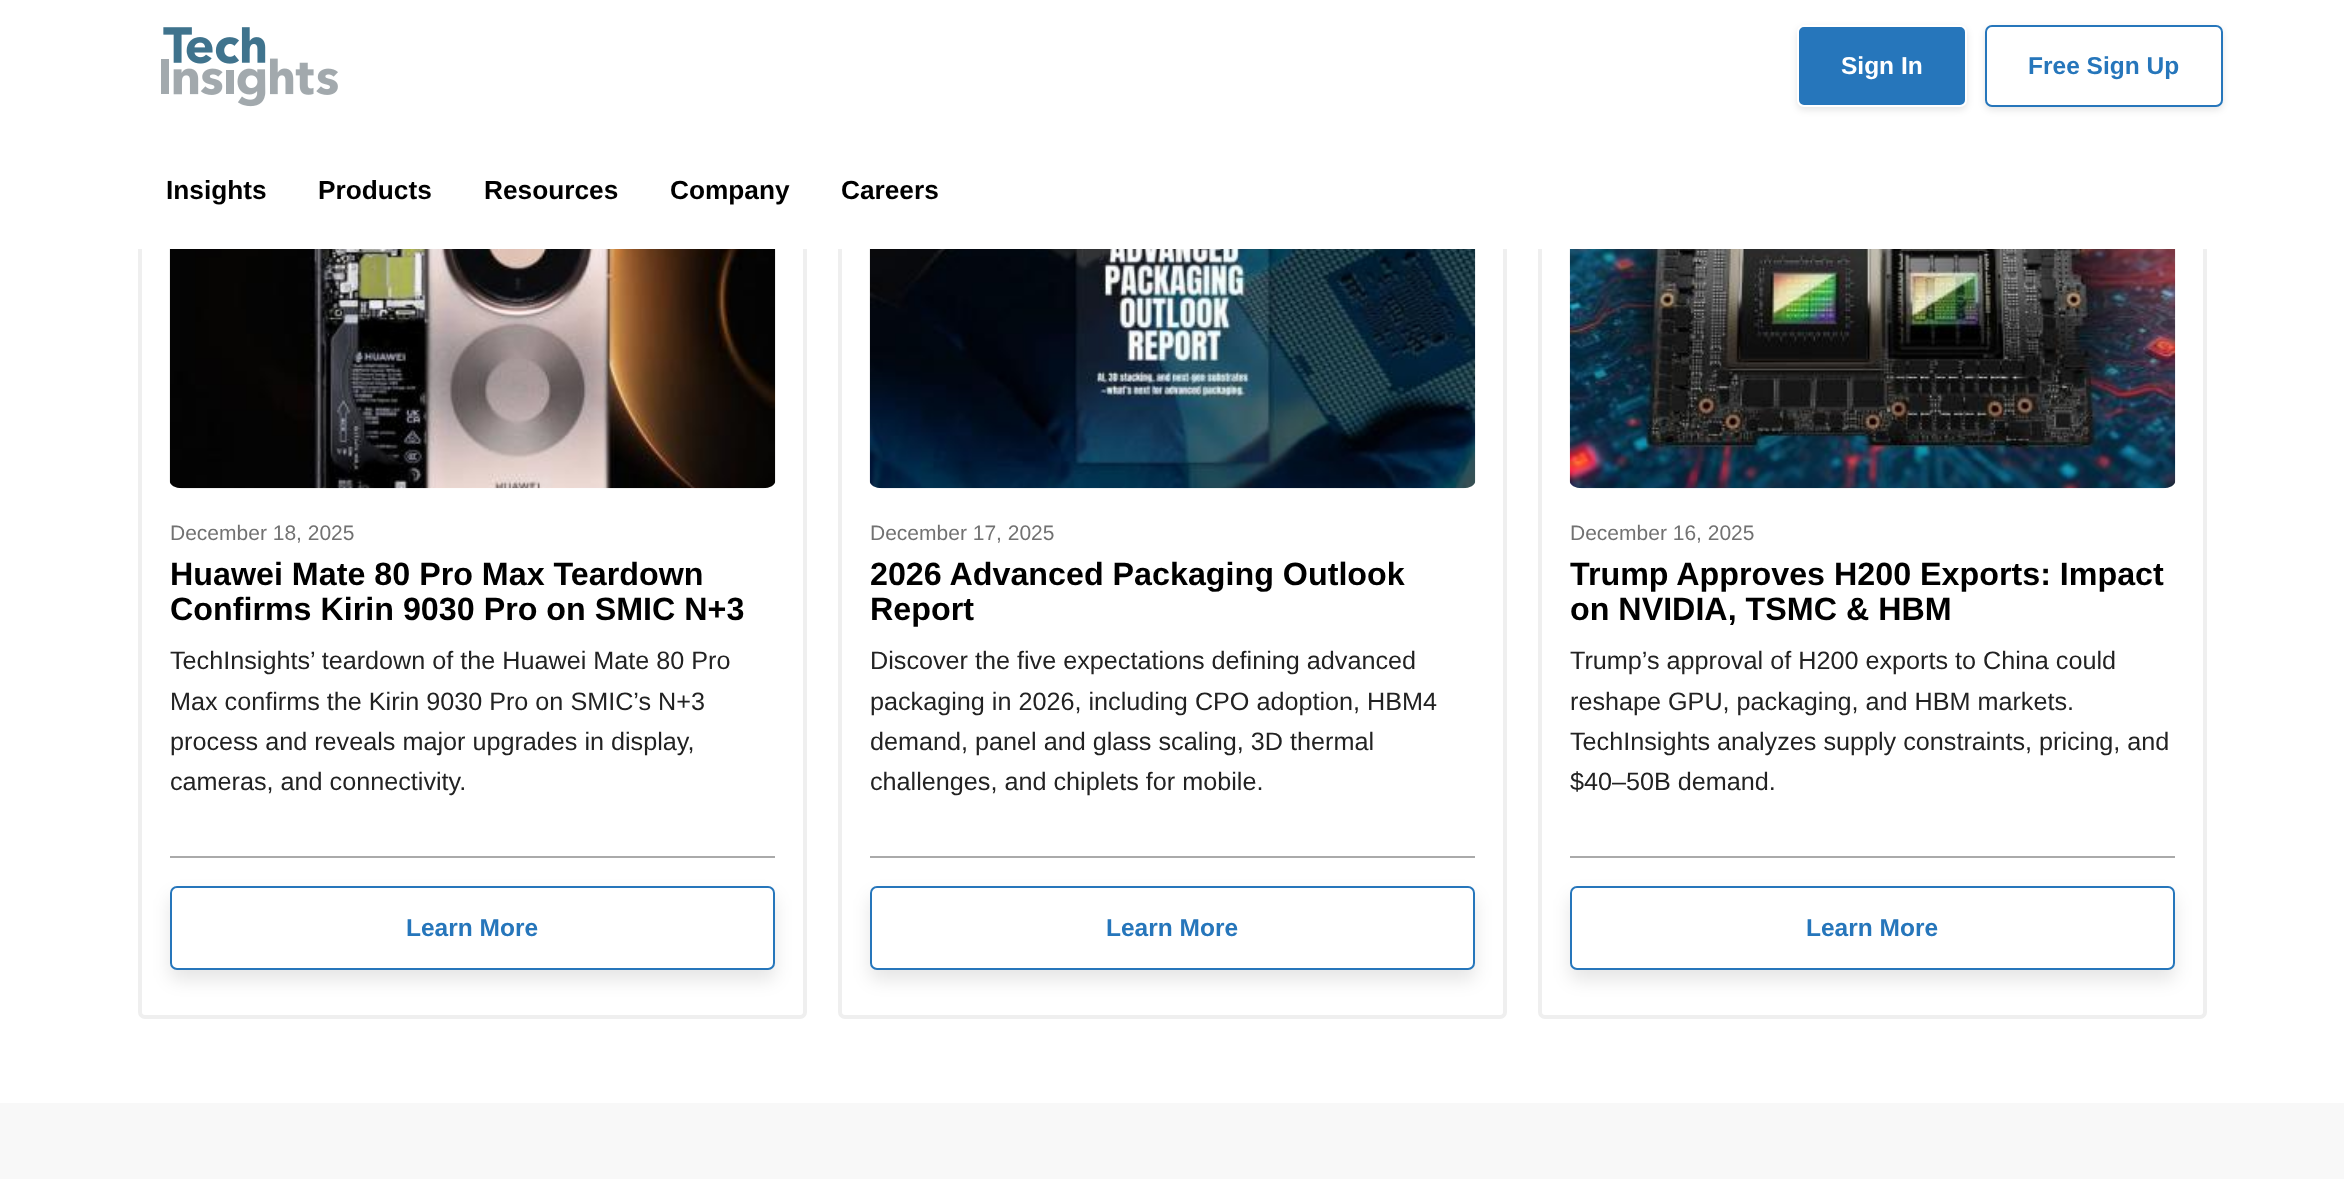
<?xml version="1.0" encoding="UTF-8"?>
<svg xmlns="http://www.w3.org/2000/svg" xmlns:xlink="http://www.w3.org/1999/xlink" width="2344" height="1179">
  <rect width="100%" height="100%" fill="#ffffff" />
  <rect x="140" y="93" width="665" height="924" rx="5" fill="none" stroke="#efefef" stroke-width="4" />
  <rect x="840" y="93" width="665" height="924" rx="5" fill="none" stroke="#efefef" stroke-width="4" />
  <rect x="1540" y="93" width="665" height="924" rx="5" fill="none" stroke="#efefef" stroke-width="4" />
  <rect x="138" y="91" width="2069" height="158" fill="#ffffff" />
  <image x="161" y="27" width="177" height="80" xlink:href="image1.png" />
  <rect x="1797" y="28" width="170" height="82" rx="7" fill="#000000" fill-opacity="0.1" filter="blur(3.5px)" />
  <rect x="1798" y="26" width="168" height="80" rx="6" fill="#2676bb" stroke="#ffffff" stroke-width="2" />
  <rect x="1985" y="28" width="238" height="82" rx="7" fill="#000000" fill-opacity="0.1" filter="blur(3.5px)" />
  <rect x="1986" y="26" width="236" height="80" rx="6" fill="#ffffff" stroke="#2676bb" stroke-width="2" />
  <rect x="170" y="856" width="605" height="2" fill="#aaaaaa" />
  <image x="169" y="249" width="607" height="240" xlink:href="image2.png" />
  <rect x="170" y="896" width="605" height="84" rx="7" fill="#000000" fill-opacity="0.1" filter="blur(9px)" />
  <rect x="171" y="887" width="603" height="82" rx="6" fill="#ffffff" stroke="#2676bb" stroke-width="2" />
  <rect x="870" y="856" width="605" height="2" fill="#aaaaaa" />
  <image x="869" y="249" width="607" height="240" xlink:href="image3.png" />
  <rect x="870" y="896" width="605" height="84" rx="7" fill="#000000" fill-opacity="0.1" filter="blur(9px)" />
  <rect x="871" y="887" width="603" height="82" rx="6" fill="#ffffff" stroke="#2676bb" stroke-width="2" />
  <rect x="1570" y="856" width="605" height="2" fill="#aaaaaa" />
  <image x="1569" y="249" width="607" height="240" xlink:href="image4.png" />
  <rect x="1570" y="896" width="605" height="84" rx="7" fill="#000000" fill-opacity="0.1" filter="blur(9px)" />
  <rect x="1571" y="887" width="603" height="82" rx="6" fill="#ffffff" stroke="#2676bb" stroke-width="2" />
  <rect y="1103" width="2344" height="76" fill="#f8f8f8" />
  <text x="1841" y="74" style="font-family: Liberation Sans; font-size: 24.5px; font-weight: bold; fill: #ffffff">Sign In</text>
  <text x="2028" y="74" style="font-family: Liberation Sans; font-size: 24.5px; font-weight: bold; fill: #2676bb">Free Sign Up</text>
  <text x="166" y="199" style="font-family: Liberation Sans; font-size: 26.25px; font-weight: bold; fill: #000000">Insights</text>
  <text x="318" y="199" style="font-family: Liberation Sans; font-size: 26.25px; font-weight: bold; fill: #000000">Products</text>
  <text x="484" y="199" style="font-family: Liberation Sans; font-size: 26.25px; font-weight: bold; fill: #000000">Resources</text>
  <text x="670" y="199" style="font-family: Liberation Sans; font-size: 26.25px; font-weight: bold; fill: #000000">Company</text>
  <text x="841" y="199" style="font-family: Liberation Sans; font-size: 26.25px; font-weight: bold; fill: #000000">Careers</text>
  <text x="170" y="540" style="font-family: Liberation Sans; font-size: 21px; fill: #727272">December 18, 2025</text>
  <text x="170" y="585" style="font-family: Liberation Sans; font-size: 32.25px; font-weight: bold; fill: #000000">Huawei Mate 80 Pro Max Teardown</text>
  <text x="170" y="620" style="font-family: Liberation Sans; font-size: 32.25px; font-weight: bold; fill: #000000">Confirms Kirin 9030 Pro on SMIC N+3</text>
  <text x="170" y="669" style="font-family: Liberation Sans; font-size: 25.2px; fill: #222222">TechInsights’ teardown of the Huawei Mate 80 Pro</text>
  <text x="170" y="710" style="font-family: Liberation Sans; font-size: 25.2px; fill: #222222">Max confirms the Kirin 9030 Pro on SMIC’s N+3</text>
  <text x="170" y="750" style="font-family: Liberation Sans; font-size: 25.2px; fill: #222222">process and reveals major upgrades in display,</text>
  <text x="170" y="790" style="font-family: Liberation Sans; font-size: 25.2px; fill: #222222">cameras, and connectivity.</text>
  <text x="406" y="936" style="font-family: Liberation Sans; font-size: 24.5px; font-weight: bold; fill: #2676bb">Learn More</text>
  <text x="870" y="540" style="font-family: Liberation Sans; font-size: 21px; fill: #727272">December 17, 2025</text>
  <text x="870" y="585" style="font-family: Liberation Sans; font-size: 32.25px; font-weight: bold; fill: #000000">2026 Advanced Packaging Outlook</text>
  <text x="870" y="620" style="font-family: Liberation Sans; font-size: 32.25px; font-weight: bold; fill: #000000">Report</text>
  <text x="870" y="669" style="font-family: Liberation Sans; font-size: 25.2px; fill: #222222">Discover the five expectations defining advanced</text>
  <text x="870" y="710" style="font-family: Liberation Sans; font-size: 25.2px; fill: #222222">packaging in 2026, including CPO adoption, HBM4</text>
  <text x="870" y="750" style="font-family: Liberation Sans; font-size: 25.2px; fill: #222222">demand, panel and glass scaling, 3D thermal</text>
  <text x="870" y="790" style="font-family: Liberation Sans; font-size: 25.2px; fill: #222222">challenges, and chiplets for mobile.</text>
  <text x="1106" y="936" style="font-family: Liberation Sans; font-size: 24.5px; font-weight: bold; fill: #2676bb">Learn More</text>
  <text x="1570" y="540" style="font-family: Liberation Sans; font-size: 21px; fill: #727272">December 16, 2025</text>
  <text x="1570" y="585" style="font-family: Liberation Sans; font-size: 32.25px; font-weight: bold; fill: #000000">Trump Approves H200 Exports: Impact</text>
  <text x="1570" y="620" style="font-family: Liberation Sans; font-size: 32.25px; font-weight: bold; fill: #000000">on NVIDIA, TSMC &amp; HBM</text>
  <text x="1570" y="669" style="font-family: Liberation Sans; font-size: 25.2px; fill: #222222">Trump’s approval of H200 exports to China could</text>
  <text x="1570" y="710" style="font-family: Liberation Sans; font-size: 25.2px; fill: #222222">reshape GPU, packaging, and HBM markets.</text>
  <text x="1570" y="750" style="font-family: Liberation Sans; font-size: 25.2px; fill: #222222">TechInsights analyzes supply constraints, pricing, and</text>
  <text x="1570" y="790" style="font-family: Liberation Sans; font-size: 25.2px; fill: #222222">$40–50B demand.</text>
  <text x="1806" y="936" style="font-family: Liberation Sans; font-size: 24.5px; font-weight: bold; fill: #2676bb">Learn More</text>
</svg>
